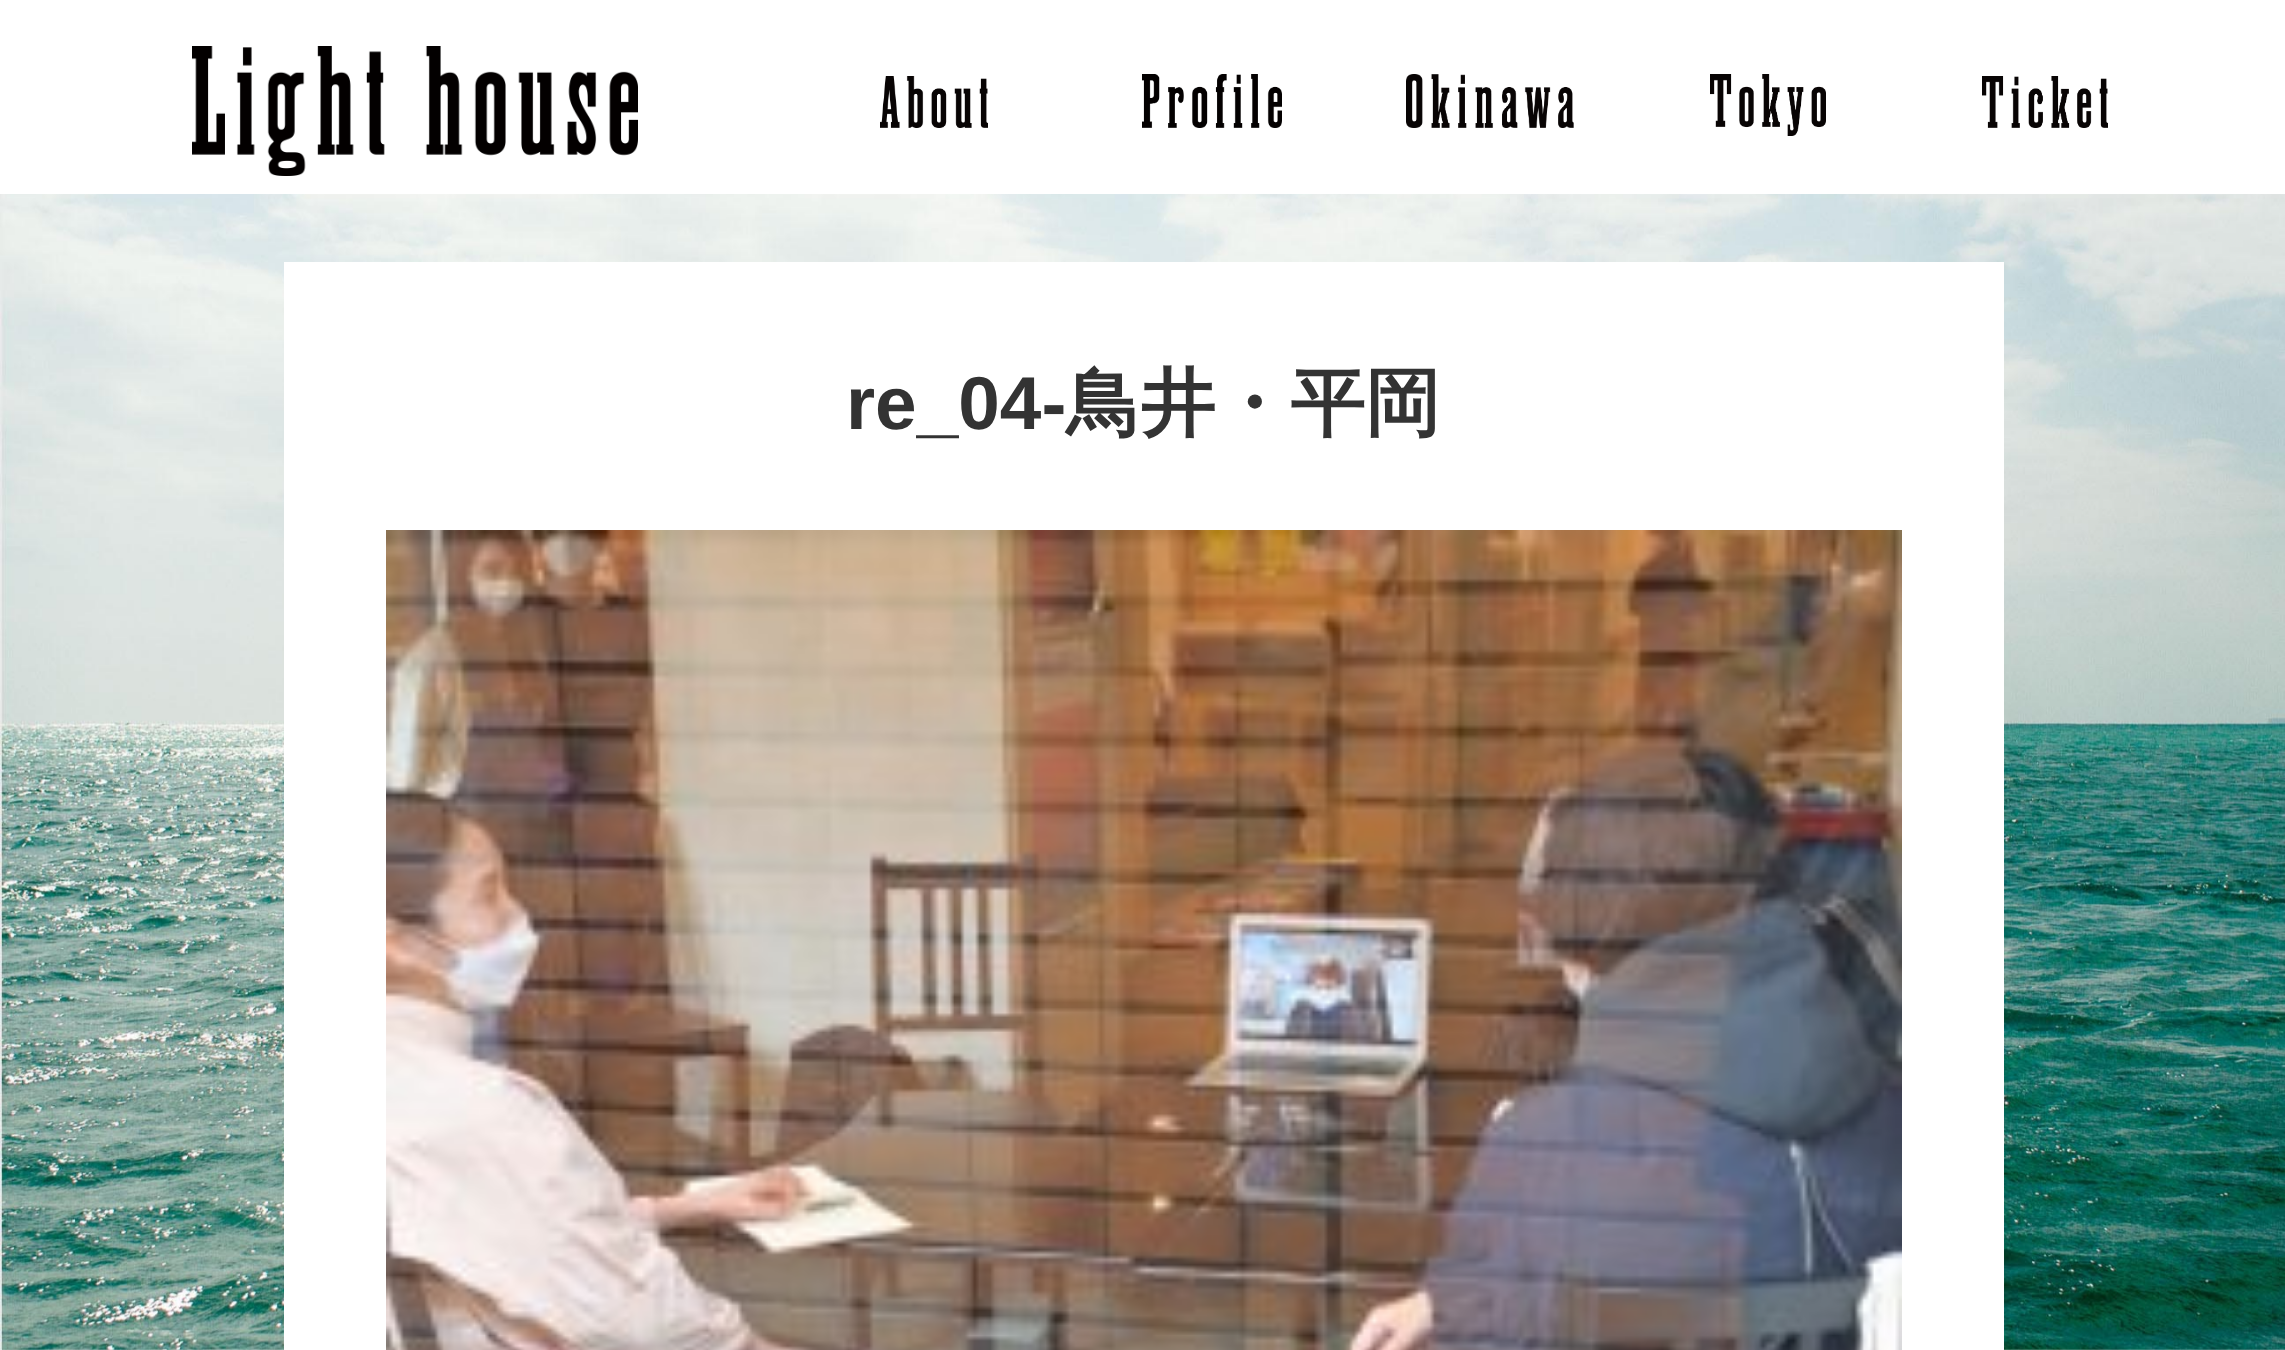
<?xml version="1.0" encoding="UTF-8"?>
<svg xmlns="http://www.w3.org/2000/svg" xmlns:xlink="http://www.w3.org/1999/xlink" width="2285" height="1350">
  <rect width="100%" height="100%" fill="#ffffff" />
  <image x="0" y="194" width="2285" height="1156" xlink:href="image1.png" />
  <image x="192" y="46" width="446" height="130" xlink:href="image2.png" />
  <image x="880" y="76" width="108" height="52" xlink:href="image3.png" />
  <image x="1142" y="74" width="140" height="54" xlink:href="image4.png" />
  <image x="1406" y="74" width="168" height="54" xlink:href="image5.png" />
  <image x="1710" y="74" width="116" height="62" xlink:href="image6.png" />
  <image x="1982" y="76" width="126" height="52" xlink:href="image7.png" />
  <rect x="284" y="262" width="1720" height="1088" fill="#ffffff" />
  <image x="386" y="530" width="1516" height="820" xlink:href="image8.png" />
  <text x="846" y="429" style="font-family: Liberation Sans; font-size: 74.75px; font-weight: bold; fill: #333333">re_04-</text>
  <text x="1066" y="429" style="font-family: WenQuanYi Zen Hei; font-size: 74.75px; font-weight: bold; fill: #333333">鳥井・平岡</text>
</svg>
